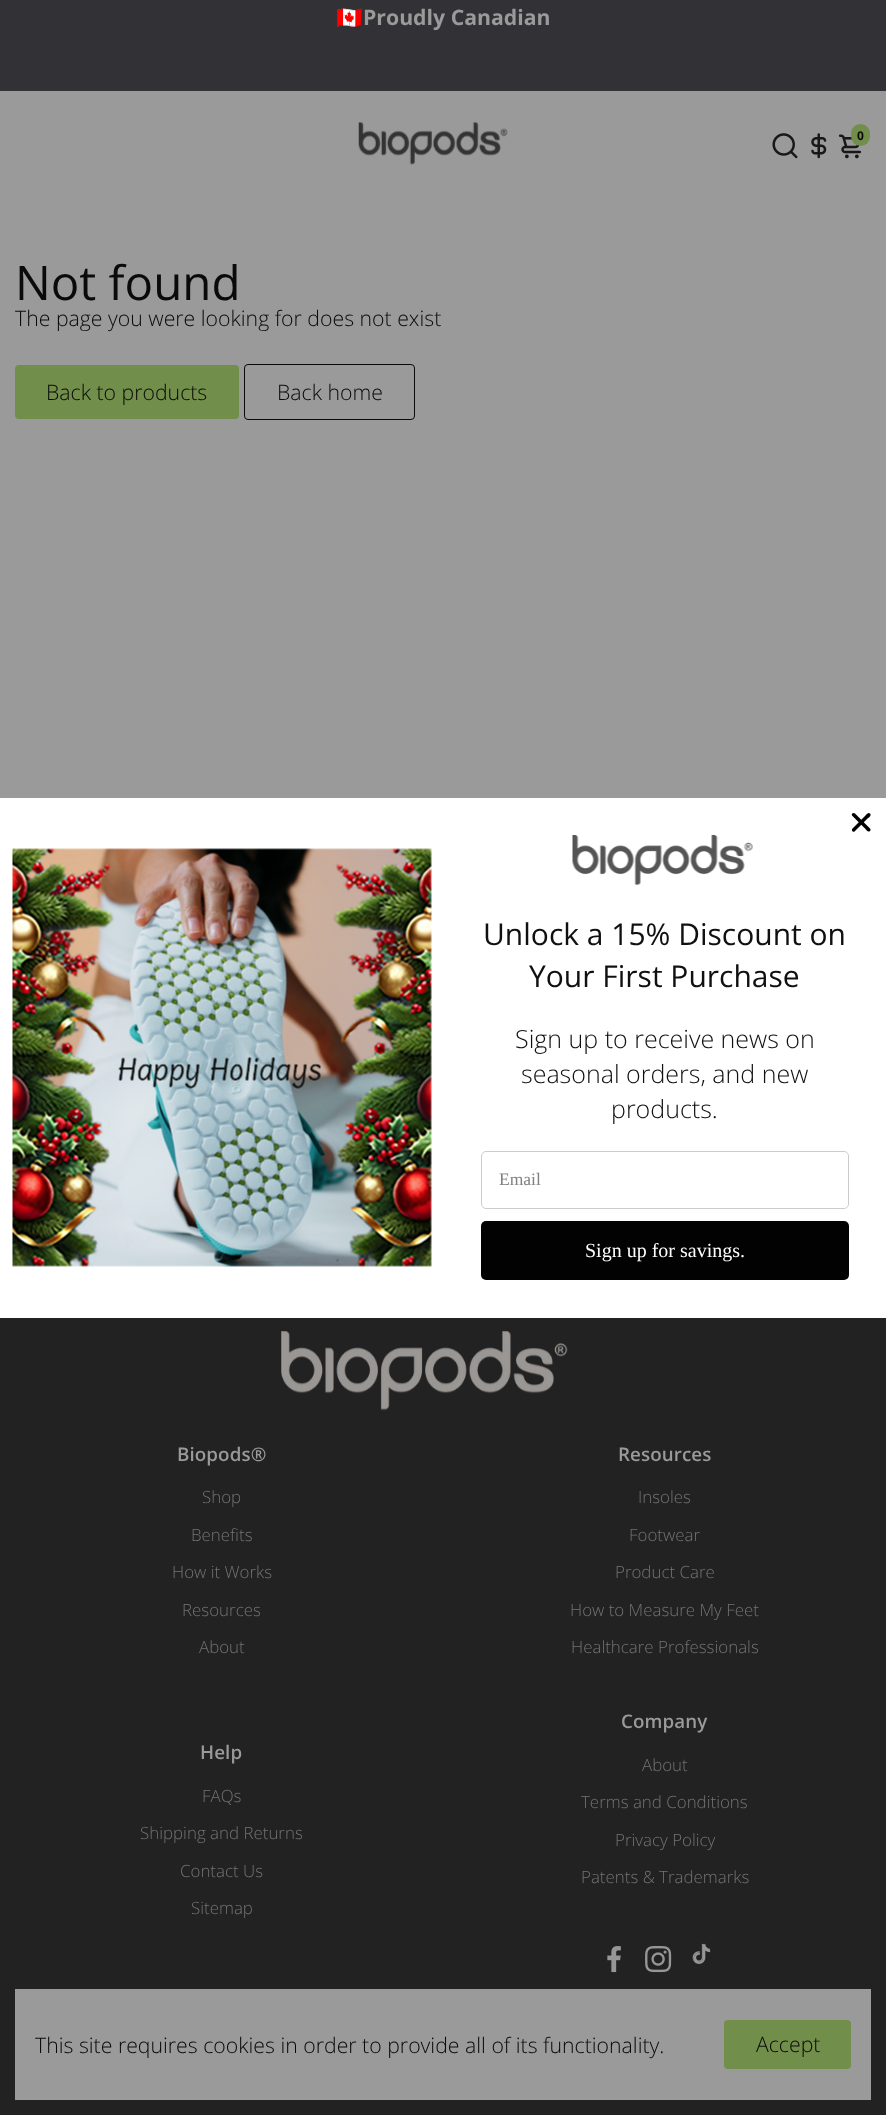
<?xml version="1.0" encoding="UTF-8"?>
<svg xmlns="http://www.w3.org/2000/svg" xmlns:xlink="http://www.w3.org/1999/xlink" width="886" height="2115">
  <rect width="100%" height="100%" fill="#9a9a9a" />
  <rect width="886" height="91" fill="#323236" />
  <image x="358" y="122" width="150" height="43" xlink:href="image1.png" />
  <image x="772" y="133" width="26" height="26" xlink:href="image2.png" />
  <image x="811" y="133" width="16" height="26" xlink:href="image3.png" />
  <image x="838" y="134" width="24" height="25" xlink:href="image4.png" />
  <rect x="851" y="124" width="19" height="22" rx="9.5" fill="#728e4b" />
  <rect x="15" y="365" width="224" height="54" rx="4" fill="#728e4b" />
  <rect x="244.5" y="364.5" width="170" height="55" rx="3.5" fill="none" stroke="#0a0a0a" />
  <rect y="1318" width="886" height="797" fill="#222222" />
  <image x="281" y="1331" width="287" height="80" xlink:href="image5.png" />
  <image x="607" y="1946" width="14" height="27" xlink:href="image6.png" />
  <image x="645" y="1946" width="27" height="27" xlink:href="image7.png" />
  <image x="692" y="1943" width="19" height="21" xlink:href="image8.png" />
  <rect y="798" width="886" height="520" fill="#ffffff" />
  <path d="M 855 813.5 l 12.5 12.5 c 1 1 4.5 3.5 2.5 5 c -2 2 -4 -1.5 -5 -2.5 l -13 -13 c -1 -2 1.5 -3.5 3 -2 z" fill="#000000" />
  <path d="M 852.5 828.5 l 12.5 -12.5 c 1 -1 3 -4.5 5 -2.5 c 2 2 -1.5 4.5 -2.5 5 l -13 13 c -2 1 -3.5 -1.5 -2 -3 z" fill="#000000" />
  <image x="12" y="848" width="420" height="419" xlink:href="image9.png" />
  <image x="572" y="835" width="181" height="50" xlink:href="image10.png" />
  <rect x="481.5" y="1151.5" width="367" height="57" rx="4.5" fill="none" stroke="#cccccc" />
  <rect x="481" y="1221" width="368" height="59" rx="5" fill="#020202" />
  <rect x="15" y="1989" width="856" height="111" fill="#9a9a9a" />
  <rect x="724" y="2020" width="127" height="49" rx="4" fill="#728e4b" />
  <text x="336" y="25" style="font-family: Noto Color Emoji; font-size: 21.25px; fill: #9a9a9a">🇨🇦</text>
  <text x="363" y="25" style="font-family: Open Sans; font-size: 21.25px; font-weight: bold; fill: #9a9a9a">Proudly Canadian</text>
  <text x="857" y="140" style="font-family: Open Sans; font-size: 12px; font-weight: bold; fill: #0a0a0a">0</text>
  <text x="15" y="300" style="font-family: Open Sans; font-size: 47.5px; fill: #0a0a0a">Not found</text>
  <text x="15" y="326" style="font-family: Open Sans; font-size: 21.25px; font-weight: 300; fill: #0a0a0a">The page you were looking for does not exist</text>
  <text x="46" y="400" style="font-family: Open Sans; font-size: 21.25px; font-weight: 300; fill: #0a0a0a">Back to products</text>
  <text x="277" y="400" style="font-family: Open Sans; font-size: 21.25px; font-weight: 300; fill: #0a0a0a">Back home</text>
  <text x="177" y="1461" style="font-family: Open Sans; font-size: 18.75px; font-weight: 600; letter-spacing: 0.1px; fill: #9a9a9a">Biopods®</text>
  <text x="202" y="1503" style="font-family: Open Sans; font-size: 16.9px; font-weight: 300; fill: #737373">Shop</text>
  <text x="191" y="1541" style="font-family: Open Sans; font-size: 16.9px; font-weight: 300; fill: #737373">Benefits</text>
  <text x="172" y="1578" style="font-family: Open Sans; font-size: 16.9px; font-weight: 300; fill: #737373">How it Works</text>
  <text x="182" y="1616" style="font-family: Open Sans; font-size: 16.9px; font-weight: 300; fill: #737373">Resources</text>
  <text x="199" y="1653" style="font-family: Open Sans; font-size: 16.9px; font-weight: 300; fill: #737373">About</text>
  <text x="618" y="1461" style="font-family: Open Sans; font-size: 18.75px; font-weight: 600; letter-spacing: 0.1px; fill: #9a9a9a">Resources</text>
  <text x="638" y="1503" style="font-family: Open Sans; font-size: 16.9px; font-weight: 300; fill: #737373">Insoles</text>
  <text x="629" y="1541" style="font-family: Open Sans; font-size: 16.9px; font-weight: 300; fill: #737373">Footwear</text>
  <text x="615" y="1578" style="font-family: Open Sans; font-size: 16.9px; font-weight: 300; fill: #737373">Product Care</text>
  <text x="570" y="1616" style="font-family: Open Sans; font-size: 16.9px; font-weight: 300; fill: #737373">How to Measure My Feet</text>
  <text x="571" y="1653" style="font-family: Open Sans; font-size: 16.9px; font-weight: 300; fill: #737373">Healthcare Professionals</text>
  <text x="200" y="1759" style="font-family: Open Sans; font-size: 18.75px; font-weight: 600; letter-spacing: 0.1px; fill: #9a9a9a">Help</text>
  <text x="202" y="1802" style="font-family: Open Sans; font-size: 16.9px; font-weight: 300; fill: #737373">FAQs</text>
  <text x="140" y="1839" style="font-family: Open Sans; font-size: 16.9px; font-weight: 300; fill: #737373">Shipping and Returns</text>
  <text x="180" y="1877" style="font-family: Open Sans; font-size: 16.9px; font-weight: 300; fill: #737373">Contact Us</text>
  <text x="191" y="1914" style="font-family: Open Sans; font-size: 16.9px; font-weight: 300; fill: #737373">Sitemap</text>
  <text x="621" y="1728" style="font-family: Open Sans; font-size: 18.75px; font-weight: 600; letter-spacing: 0.1px; fill: #9a9a9a">Company</text>
  <text x="642" y="1771" style="font-family: Open Sans; font-size: 16.9px; font-weight: 300; fill: #737373">About</text>
  <text x="581" y="1808" style="font-family: Open Sans; font-size: 16.9px; font-weight: 300; fill: #737373">Terms and Conditions</text>
  <text x="615" y="1846" style="font-family: Open Sans; font-size: 16.9px; font-weight: 300; fill: #737373">Privacy Policy</text>
  <text x="581" y="1883" style="font-family: Open Sans; font-size: 16.9px; font-weight: 300; fill: #737373">Patents &amp; Trademarks</text>
  <text x="483" y="945" style="font-family: Open Sans; font-size: 30px; fill: #101010">Unlock a 15% Discount on</text>
  <text x="529" y="987" style="font-family: Open Sans; font-size: 30px; fill: #101010">Your First Purchase</text>
  <text x="515" y="1048" style="font-family: Open Sans; font-size: 25px; font-weight: 300; fill: #101010">Sign up to receive news on</text>
  <text x="521" y="1083" style="font-family: Open Sans; font-size: 25px; font-weight: 300; fill: #101010">seasonal orders, and new</text>
  <text x="611" y="1118" style="font-family: Open Sans; font-size: 25px; font-weight: 300; fill: #101010">products.</text>
  <text x="499" y="1185" style="font-family: Liberation Serif; font-size: 17.5px; fill: #808080">Email</text>
  <text x="585" y="1257" style="font-family: Liberation Serif; font-size: 20px; fill: #ffffff">Sign up for savings.</text>
  <text x="35" y="2053" style="font-family: Open Sans; font-size: 21.25px; font-weight: 300; fill: #0a0a0a">This site requires cookies in order to provide all of its functionality.</text>
  <text x="756" y="2052" style="font-family: Open Sans; font-size: 21.25px; font-weight: 300; fill: #0a0a0a">Accept</text>
</svg>
